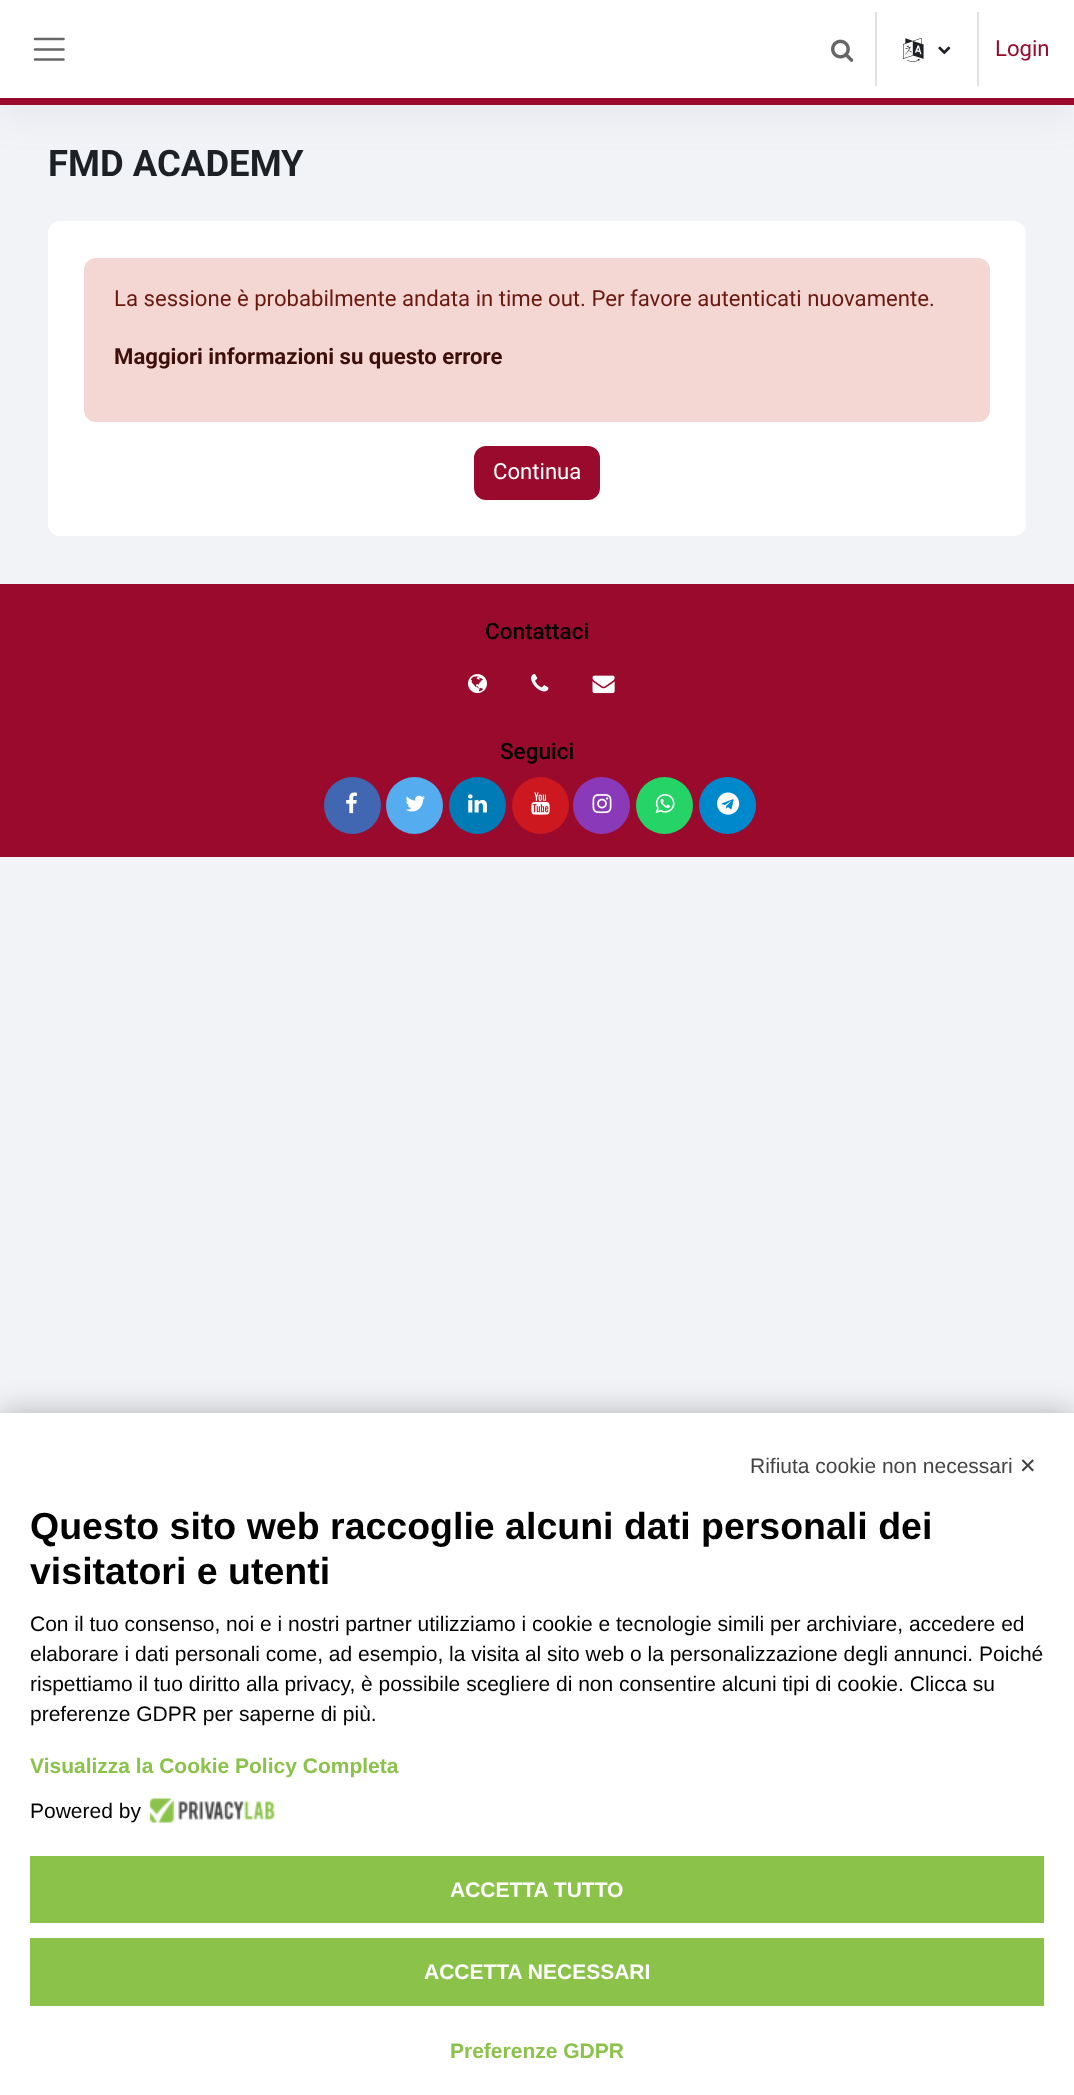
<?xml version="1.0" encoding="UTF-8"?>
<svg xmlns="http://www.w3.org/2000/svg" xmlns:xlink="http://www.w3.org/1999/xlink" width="1074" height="2095">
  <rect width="100%" height="100%" fill="#f2f3f7" />
  <rect y="9" width="1074" height="105" fill="#8c98a4" fill-opacity="0.13" filter="blur(18px)" />
  <rect width="1074" height="98" fill="#ffffff" />
  <rect y="98" width="1074" height="7" fill="#990a2c" />
  <path d="M 35 39 h 28.5 m -28.5 10.5 h 28.5 m -28.5 10 h 28.5" fill="none" stroke="#666666" stroke-width="2.6" stroke-linecap="round" />
  <image x="831" y="39" width="23" height="23" xlink:href="image1.png" />
  <rect x="875" y="12" width="2" height="74" fill="#dee2e6" />
  <image x="903" y="38" width="21" height="24" xlink:href="image2.png" />
  <image x="938" y="46" width="13" height="9" xlink:href="image3.png" />
  <rect x="977" y="12" width="2" height="74" fill="#dee2e6" />
  <rect x="48" y="221" width="978" height="315" rx="12" fill="#ffffff" />
  <rect x="84" y="258" width="906" height="164" rx="12" fill="#f4d6d2" />
  <rect x="475" y="447" width="124" height="52" rx="11" fill="#990a2c" stroke="#990a2c" stroke-width="2" />
  <rect y="584" width="1074" height="273" fill="#990a2c" />
  <image x="468" y="674" width="19" height="20" xlink:href="image4.png" />
  <image x="531" y="674" width="18" height="18" xlink:href="image5.png" />
  <image x="592" y="675" width="23" height="19" xlink:href="image6.png" />
  <circle cx="352.5" cy="805.5" r="28.5" fill="#4167b2" />
  <image x="346" y="792" width="11" height="22" xlink:href="image7.png" />
  <circle cx="414.5" cy="805.5" r="28.5" fill="#55acee" />
  <image x="405" y="795" width="20" height="17" xlink:href="image8.png" />
  <circle cx="477.5" cy="805.5" r="28.5" fill="#007bb5" />
  <image x="468" y="794" width="19" height="19" xlink:href="image9.png" />
  <circle cx="540.5" cy="805.5" r="28.5" fill="#cc181e" />
  <image x="531" y="792" width="19" height="23" xlink:href="image10.png" />
  <circle cx="601.5" cy="805.5" r="28.5" fill="#8a3ab9" />
  <image x="592" y="794" width="20" height="20" xlink:href="image11.png" />
  <circle cx="664.5" cy="805.5" r="28.5" fill="#25d366" />
  <image x="655" y="794" width="20" height="20" xlink:href="image12.png" />
  <circle cx="727.5" cy="805.5" r="28.5" fill="#0088cc" />
  <image x="717" y="792" width="23" height="23" xlink:href="image13.png" />
  <rect y="1413" width="1074" height="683" fill="#000000" fill-opacity="0.27" filter="blur(15px)" />
  <rect y="1413" width="1074" height="682" fill="#ffffff" />
  <image x="149" y="1798" width="126" height="25" xlink:href="image14.png" />
  <rect x="30" y="1856" width="1014" height="67" fill="#8bc34a" />
  <rect x="30" y="1938" width="1014" height="68" fill="#8bc34a" />
  <text x="995" y="56" style="font-family: Roboto; font-size: 22.15px; fill: #990a2c">Login</text>
  <text x="48" y="176" style="font-family: Roboto; font-size: 36.5px; font-weight: bold; fill: #1d2125">FMD ACADEMY</text>
  <text x="114" y="306" style="font-family: Roboto; font-size: 22.15px; fill: #691911">La sessione è probabilmente andata in time out. Per favore autenticati nuovamente.</text>
  <text x="114" y="364" style="font-family: Roboto; font-size: 22.15px; font-weight: bold; fill: #3d0f0a">Maggiori informazioni su questo errore</text>
  <text x="493" y="479" style="font-family: Roboto; font-size: 22.15px; fill: #ffffff">Continua</text>
  <text x="485" y="639" style="font-family: Roboto; font-size: 22.5px; font-weight: 500; fill: #000000">Contattaci</text>
  <text x="500" y="759" style="font-family: Roboto; font-size: 22.5px; font-weight: 500; fill: #000000">Seguici</text>
  <text x="750" y="1473" style="font-family: Liberation Sans; font-size: 21px; fill: #444444">Rifiuta cookie non necessari</text>
  <text x="1019" y="1473" style="font-family: DejaVu Sans; font-size: 21px; fill: #444444">✕</text>
  <text x="30" y="1539" style="font-family: Liberation Sans; font-size: 37.5px; font-weight: bold; fill: #000000">Questo sito web raccoglie alcuni dati personali dei</text>
  <text x="30" y="1584" style="font-family: Liberation Sans; font-size: 37.5px; font-weight: bold; fill: #000000">visitatori e utenti</text>
  <text x="30" y="1631" style="font-family: Liberation Sans; font-size: 21px; fill: #000000">Con il tuo consenso, noi e i nostri partner utilizziamo i cookie e tecnologie simili per archiviare, accedere ed</text>
  <text x="30" y="1661" style="font-family: Liberation Sans; font-size: 21px; fill: #000000">elaborare i dati personali come, ad esempio, la visita al sito web o la personalizzazione degli annunci. Poiché</text>
  <text x="30" y="1691" style="font-family: Liberation Sans; font-size: 21px; fill: #000000">rispettiamo il tuo diritto alla privacy, è possibile scegliere di non consentire alcuni tipi di cookie. Clicca su</text>
  <text x="30" y="1721" style="font-family: Liberation Sans; font-size: 21px; fill: #000000">preferenze GDPR per saperne di più.</text>
  <text x="30" y="1773" style="font-family: Liberation Sans; font-size: 21px; font-weight: bold; fill: #8bc34a">Visualizza la Cookie Policy Completa</text>
  <text x="30" y="1818" style="font-family: Liberation Sans; font-size: 21px; fill: #000000">Powered by</text>
  <text x="450" y="1897" style="font-family: Liberation Sans; font-size: 21px; font-weight: bold; fill: #ffffff">ACCETTA TUTTO</text>
  <text x="424" y="1979" style="font-family: Liberation Sans; font-size: 21px; font-weight: bold; fill: #ffffff">ACCETTA NECESSARI</text>
  <text x="450" y="2058" style="font-family: Liberation Sans; font-size: 21px; font-weight: bold; fill: #8bc34a">Preferenze GDPR</text>
</svg>
